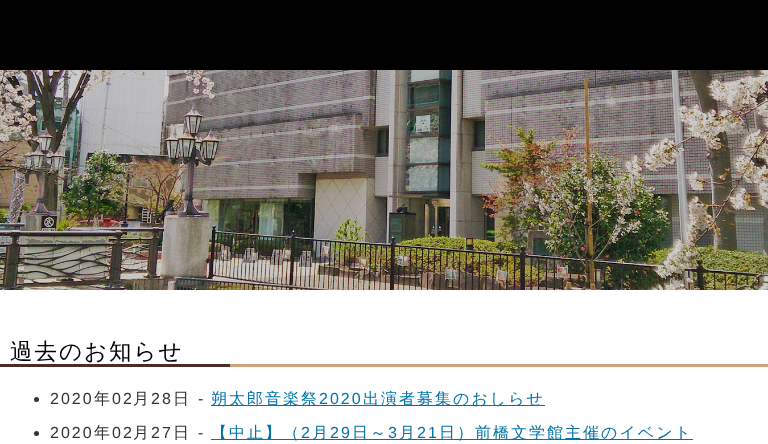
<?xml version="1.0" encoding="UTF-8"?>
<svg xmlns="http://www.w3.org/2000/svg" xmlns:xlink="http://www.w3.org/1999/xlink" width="768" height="444">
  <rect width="100%" height="100%" fill="#ffffff" />
  <rect width="768" height="70" fill="#000000" />
  <image x="0" y="70" width="768" height="220" xlink:href="image1.png" />
  <rect x="230" y="364" width="538" height="3" fill="#cca37e" />
  <rect y="364" width="230" height="3" fill="#4b2d27" />
  <circle cx="36.5" cy="399.5" r="2.5" fill="#333333" />
  <rect x="211" y="405" width="334" height="1" fill="#0073a8" />
  <circle cx="36.5" cy="433.5" r="2.5" fill="#333333" />
  <rect x="211" y="439" width="482" height="1" fill="#0073a8" />
  <text x="10" y="359" style="font-family: WenQuanYi Zen Hei; font-size: 22.5px; font-weight: 500; letter-spacing: 2px; fill: #000000">過去のお知らせ</text>
  <text x="50" y="404" style="font-family: Liberation Sans; font-size: 16px; letter-spacing: 2px; fill: #333333">2020</text>
  <text x="94" y="404" style="font-family: WenQuanYi Zen Hei; font-size: 16px; font-weight: 500; letter-spacing: 2px; fill: #333333">年</text>
  <text x="112" y="404" style="font-family: Liberation Sans; font-size: 16px; letter-spacing: 2px; fill: #333333">02</text>
  <text x="133" y="404" style="font-family: WenQuanYi Zen Hei; font-size: 16px; font-weight: 500; letter-spacing: 2px; fill: #333333">月</text>
  <text x="151" y="404" style="font-family: Liberation Sans; font-size: 16px; letter-spacing: 2px; fill: #333333">28</text>
  <text x="173" y="404" style="font-family: WenQuanYi Zen Hei; font-size: 16px; font-weight: 500; letter-spacing: 2px; fill: #333333">日</text>
  <text x="198" y="404" style="font-family: Liberation Sans; font-size: 16px; letter-spacing: 2px; fill: #333333">-</text>
  <text x="211" y="404" style="font-family: WenQuanYi Zen Hei; font-size: 16px; font-weight: 500; letter-spacing: 2px; fill: #0073a8">朔太郎音楽祭</text>
  <text x="319" y="404" style="font-family: Liberation Sans; font-size: 16px; letter-spacing: 2px; fill: #0073a8">2020</text>
  <text x="363" y="404" style="font-family: WenQuanYi Zen Hei; font-size: 16px; font-weight: 500; letter-spacing: 2px; fill: #0073a8">出演者募集のおしらせ</text>
  <text x="50" y="438" style="font-family: Liberation Sans; font-size: 16px; letter-spacing: 2px; fill: #333333">2020</text>
  <text x="94" y="438" style="font-family: WenQuanYi Zen Hei; font-size: 16px; font-weight: 500; letter-spacing: 2px; fill: #333333">年</text>
  <text x="112" y="438" style="font-family: Liberation Sans; font-size: 16px; letter-spacing: 2px; fill: #333333">02</text>
  <text x="133" y="438" style="font-family: WenQuanYi Zen Hei; font-size: 16px; font-weight: 500; letter-spacing: 2px; fill: #333333">月</text>
  <text x="151" y="438" style="font-family: Liberation Sans; font-size: 16px; letter-spacing: 2px; fill: #333333">27</text>
  <text x="173" y="438" style="font-family: WenQuanYi Zen Hei; font-size: 16px; font-weight: 500; letter-spacing: 2px; fill: #333333">日</text>
  <text x="198" y="438" style="font-family: Liberation Sans; font-size: 16px; letter-spacing: 2px; fill: #333333">-</text>
  <text x="211" y="438" style="font-family: WenQuanYi Zen Hei; font-size: 16px; font-weight: 500; letter-spacing: 2px; fill: #0073a8">【中止】（</text>
  <text x="301" y="438" style="font-family: Liberation Sans; font-size: 16px; letter-spacing: 2px; fill: #0073a8">2</text>
  <text x="312" y="438" style="font-family: WenQuanYi Zen Hei; font-size: 16px; font-weight: 500; letter-spacing: 2px; fill: #0073a8">月</text>
  <text x="330" y="438" style="font-family: Liberation Sans; font-size: 16px; letter-spacing: 2px; fill: #0073a8">29</text>
  <text x="352" y="438" style="font-family: WenQuanYi Zen Hei; font-size: 16px; font-weight: 500; letter-spacing: 2px; fill: #0073a8">日～</text>
  <text x="388" y="438" style="font-family: Liberation Sans; font-size: 16px; letter-spacing: 2px; fill: #0073a8">3</text>
  <text x="399" y="438" style="font-family: WenQuanYi Zen Hei; font-size: 16px; font-weight: 500; letter-spacing: 2px; fill: #0073a8">月</text>
  <text x="417" y="438" style="font-family: Liberation Sans; font-size: 16px; letter-spacing: 2px; fill: #0073a8">21</text>
  <text x="439" y="438" style="font-family: WenQuanYi Zen Hei; font-size: 16px; font-weight: 500; letter-spacing: 2px; fill: #0073a8">日）前橋文学館主催のイベント</text>
</svg>
